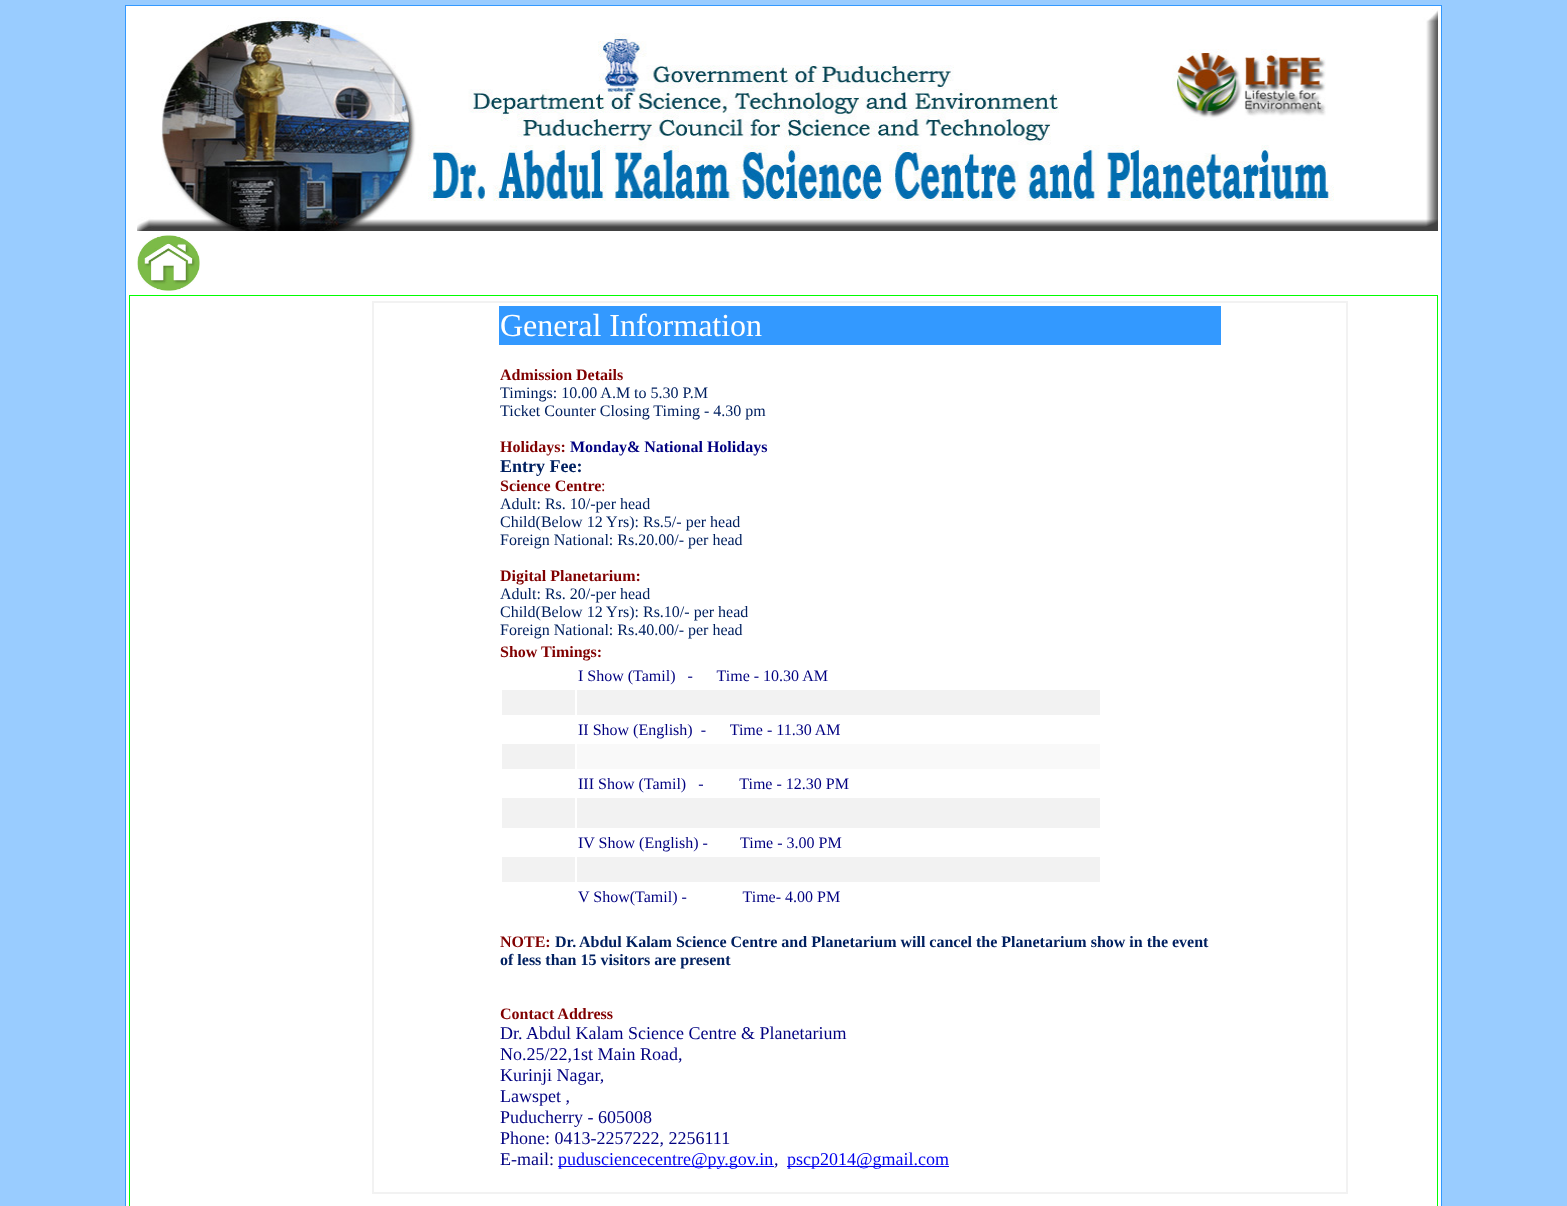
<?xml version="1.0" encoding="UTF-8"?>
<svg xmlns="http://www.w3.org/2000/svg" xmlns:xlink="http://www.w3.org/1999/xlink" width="1567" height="1206">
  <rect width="100%" height="100%" fill="#99ccff" />
  <rect x="125.5" y="5.5" width="1316" height="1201" fill="#ffffff" stroke="#3399ff" />
  <image x="137" y="9" width="1301" height="222" xlink:href="image1.png" />
  <image x="137" y="235" width="63" height="56" xlink:href="image2.png" />
  <rect x="129.5" y="295.5" width="1308" height="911" fill="none" stroke="#00ff00" />
  <rect x="373" y="302" width="974" height="891" fill="none" stroke="#f2f2f2" stroke-width="2" />
  <rect x="499" y="306" width="722" height="39" fill="#3399ff" />
  <rect x="502" y="690" width="73" height="25" fill="#f2f2f2" />
  <rect x="577" y="690" width="523" height="25" fill="#f2f2f2" />
  <rect x="502" y="744" width="73" height="25" fill="#f2f2f2" />
  <rect x="577" y="744" width="523" height="25" fill="#f9f9f9" />
  <rect x="502" y="798" width="73" height="30" fill="#f2f2f2" />
  <rect x="577" y="798" width="523" height="30" fill="#f2f2f2" />
  <rect x="502" y="857" width="73" height="25" fill="#f2f2f2" />
  <rect x="577" y="857" width="523" height="25" fill="#f2f2f2" />
  <rect x="558" y="1166" width="216" height="1" fill="#0000ee" />
  <rect x="787" y="1166" width="162" height="1" fill="#0000ee" />
  <text x="500" y="336" style="font-family: Liberation Serif; font-size: 32px; fill: #ffffff">General Information</text>
  <text x="500" y="380" style="font-family: Liberation Serif; font-size: 16px; font-weight: bold; fill: #800000">Admission Details</text>
  <text x="500" y="398" style="font-family: Liberation Serif; font-size: 16px; fill: #002060">Timings: 10.00 A.M to 5.30 P.M</text>
  <text x="500" y="416" style="font-family: Liberation Serif; font-size: 16px; fill: #002060">Ticket Counter Closing Timing - 4.30 pm</text>
  <text x="500" y="452" style="font-family: Liberation Serif; font-size: 16px; font-weight: bold; fill: #800000">Holidays:</text>
  <text x="570" y="452" style="font-family: Liberation Serif; font-size: 16px; font-weight: bold; fill: #000080">Monday&amp; National Holidays</text>
  <text x="500" y="472" style="font-family: Liberation Serif; font-size: 18px; font-weight: bold; fill: #002060">Entry Fee:</text>
  <text x="500" y="491" style="font-family: Liberation Serif; font-size: 16px; font-weight: bold; fill: #800000">Science Centre</text>
  <text x="601" y="491" style="font-family: Liberation Serif; font-size: 16px; fill: #800000">:</text>
  <text x="500" y="509" style="font-family: Liberation Serif; font-size: 16px; fill: #002060">Adult: Rs. 10/-per head</text>
  <text x="500" y="527" style="font-family: Liberation Serif; font-size: 16px; fill: #002060">Child(Below 12 Yrs): Rs.5/- per head</text>
  <text x="500" y="545" style="font-family: Liberation Serif; font-size: 16px; fill: #002060">Foreign National: Rs.20.00/- per head</text>
  <text x="500" y="581" style="font-family: Liberation Serif; font-size: 16px; font-weight: bold; fill: #800000">Digital Planetarium:</text>
  <text x="500" y="599" style="font-family: Liberation Serif; font-size: 16px; fill: #002060">Adult: Rs. 20/-per head</text>
  <text x="500" y="617" style="font-family: Liberation Serif; font-size: 16px; fill: #002060">Child(Below 12 Yrs): Rs.10/- per head</text>
  <text x="500" y="635" style="font-family: Liberation Serif; font-size: 16px; fill: #002060">Foreign National: Rs.40.00/- per head</text>
  <text x="500" y="657" style="font-family: Liberation Serif; font-size: 16px; font-weight: bold; fill: #800000">Show Timings:</text>
  <text x="578" y="681" style="font-family: Liberation Serif; font-size: 16px; fill: #000080" xml:space="preserve">I Show (Tamil)   -      Time - 10.30 AM</text>
  <text x="578" y="735" style="font-family: Liberation Serif; font-size: 16px; fill: #000080" xml:space="preserve">II Show (English)  -      Time - 11.30 AM</text>
  <text x="578" y="789" style="font-family: Liberation Serif; font-size: 16px; fill: #000080" xml:space="preserve">III Show (Tamil)   -         Time - 12.30 PM</text>
  <text x="578" y="848" style="font-family: Liberation Serif; font-size: 16px; fill: #000080">IV Show (English) -</text>
  <text x="740" y="848" style="font-family: Liberation Serif; font-size: 16px; fill: #000080">Time - 3.00 PM</text>
  <text x="578" y="902" style="font-family: Liberation Serif; font-size: 16px; fill: #000080" xml:space="preserve">V Show(Tamil) -              Time- 4.00 PM</text>
  <text x="500" y="947" style="font-family: Liberation Serif; font-size: 16px; font-weight: bold; fill: #800000">NOTE:</text>
  <text x="555" y="947" style="font-family: Liberation Serif; font-size: 16px; font-weight: bold; fill: #002060">Dr.</text>
  <text x="579" y="947" style="font-family: Liberation Serif; font-size: 16px; font-weight: bold; fill: #002060">Abdul Kalam Science Centre and Planetarium will cancel the Planetarium show in the event</text>
  <text x="500" y="965" style="font-family: Liberation Serif; font-size: 16px; font-weight: bold; fill: #002060">of less than 15 visitors are present</text>
  <text x="500" y="1019" style="font-family: Liberation Serif; font-size: 16px; font-weight: bold; fill: #800000">Contact Address</text>
  <text x="500" y="1039" style="font-family: Liberation Serif; font-size: 18px; fill: #000080">Dr. Abdul Kalam Science Centre &amp; Planetarium</text>
  <text x="500" y="1060" style="font-family: Liberation Serif; font-size: 18px; fill: #000080">No.25/22,1st Main Road,</text>
  <text x="500" y="1081" style="font-family: Liberation Serif; font-size: 18px; fill: #000080">Kurinji Nagar,</text>
  <text x="500" y="1102" style="font-family: Liberation Serif; font-size: 18px; fill: #000080">Lawspet ,</text>
  <text x="500" y="1123" style="font-family: Liberation Serif; font-size: 18px; fill: #000080">Puducherry - 605008</text>
  <text x="500" y="1144" style="font-family: Liberation Serif; font-size: 18px; fill: #000080">Phone: 0413-2257222, 2256111</text>
  <text x="500" y="1165" style="font-family: Liberation Serif; font-size: 18px; fill: #000080">E-mail:</text>
  <text x="558" y="1165" style="font-family: Liberation Serif; font-size: 18px; fill: #0000ee">pudusciencecentre@py.gov.in</text>
  <text x="774" y="1165" style="font-family: Liberation Serif; font-size: 18px; fill: #000080">,</text>
  <text x="787" y="1165" style="font-family: Liberation Serif; font-size: 18px; fill: #0000ee">pscp2014@gmail.com</text>
</svg>
